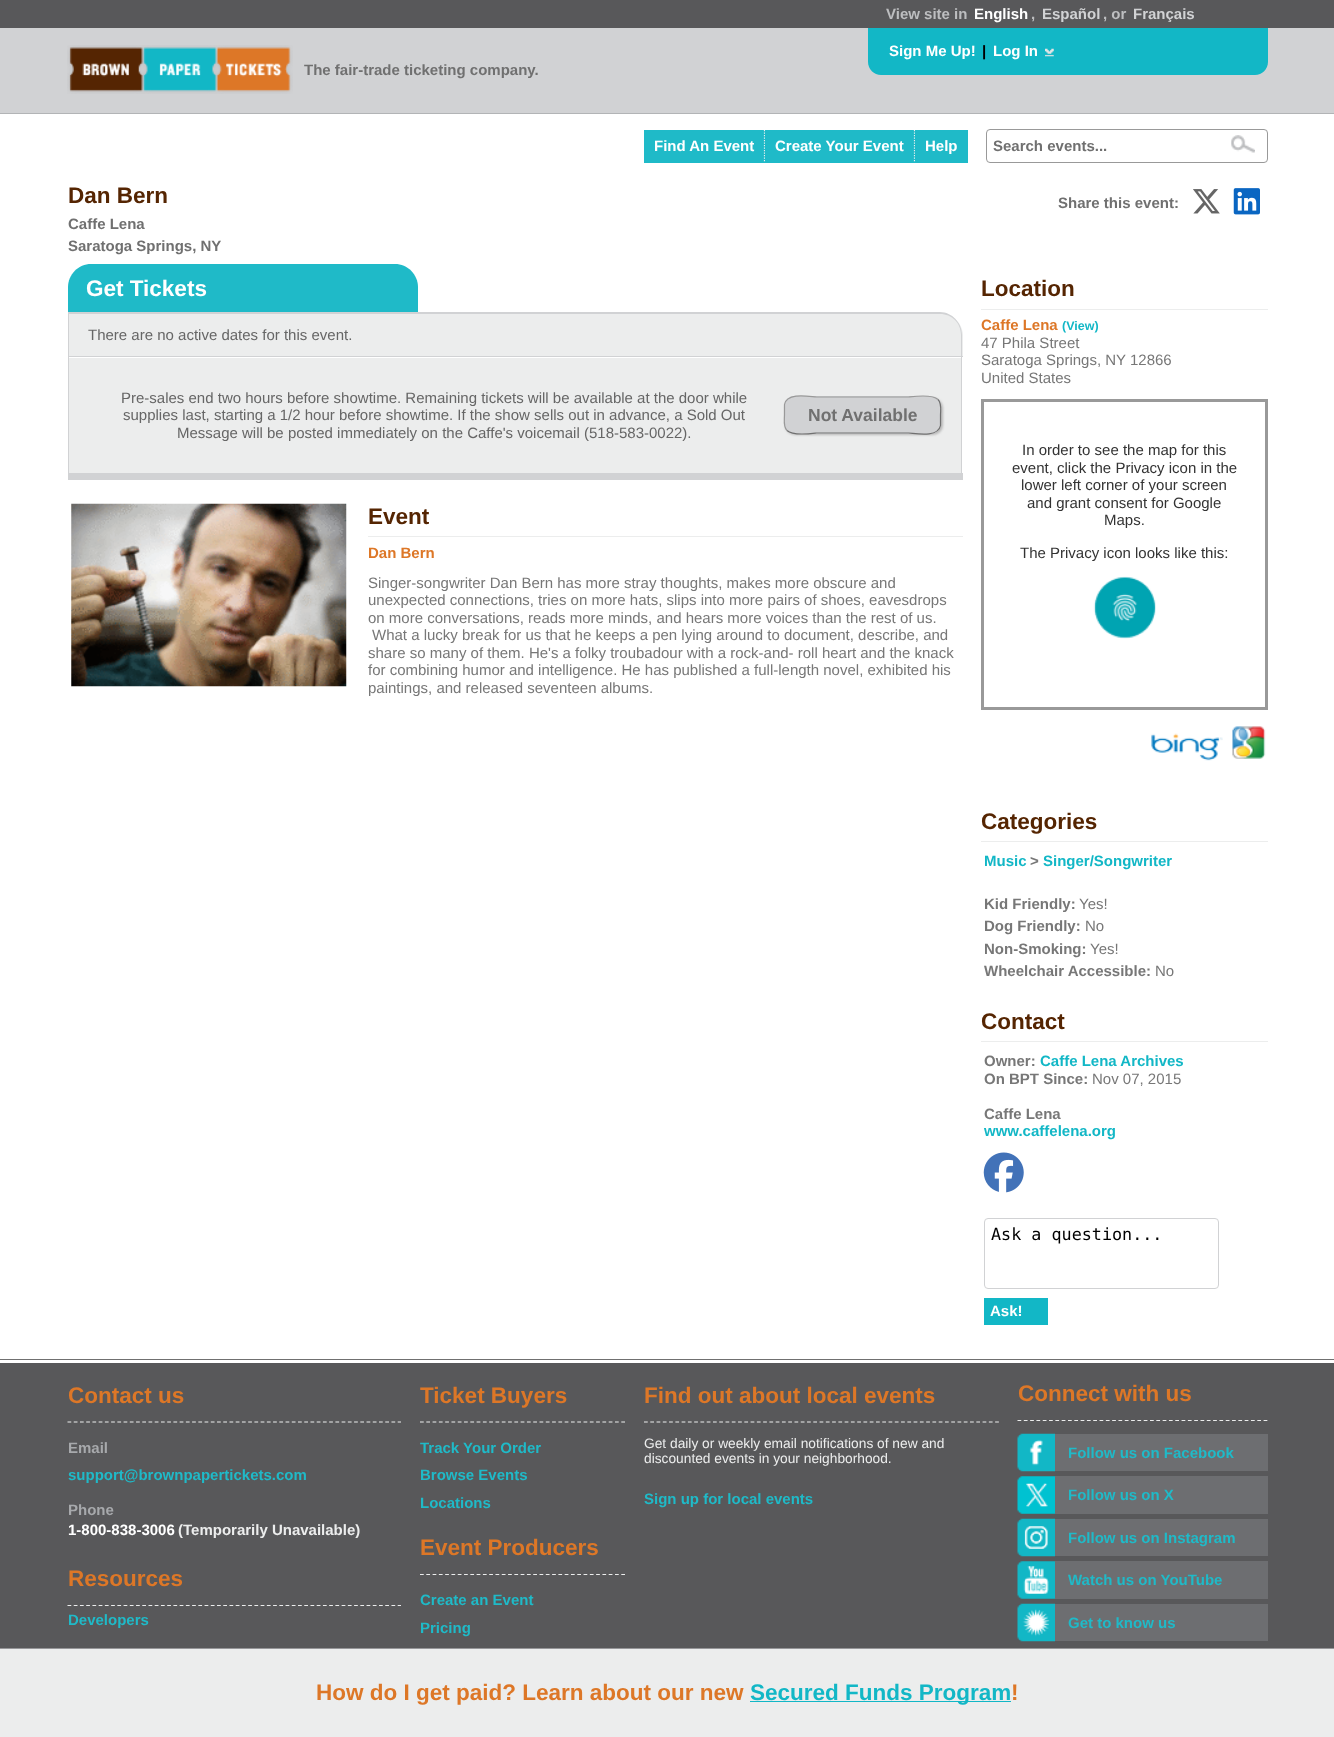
<?xml version="1.0" encoding="UTF-8"?>
<svg xmlns="http://www.w3.org/2000/svg" xmlns:xlink="http://www.w3.org/1999/xlink" width="1334" height="1737">
  <rect width="100%" height="100%" fill="#58585a" />
  <rect y="28" width="1334" height="85" fill="#d1d2d4" />
  <rect y="113" width="1334" height="1" fill="#b2b4b6" />
  <image x="67" y="45" width="226" height="49" xlink:href="image1.png" />
  <path d="M 868 28 h 400 v 34 c 0 7 -6 13 -13 13 h -374 c -7 0 -13 -6 -13 -13 z" fill="#12b7c6" />
  <image x="1045" y="48" width="9" height="9" xlink:href="image2.png" />
  <rect y="114" width="1334" height="1249" fill="#ffffff" />
  <rect x="644" y="130" width="121" height="33" fill="#1fbac8" />
  <path d="M 764.5 130 v 32.5" fill="none" stroke="#efefef" stroke-width="1.2" stroke-dasharray="1.25 1.25" />
  <rect x="765" y="130" width="150" height="33" fill="#1fbac8" />
  <path d="M 914.5 130 v 32.5" fill="none" stroke="#efefef" stroke-width="1.2" stroke-dasharray="1.25 1.25" />
  <rect x="915" y="130" width="53" height="33" fill="#1fbac8" />
  <rect x="986.5" y="129.5" width="281" height="33" rx="3.5" fill="none" stroke="#999999" />
  <image x="1231" y="135" width="24" height="18" xlink:href="image3.png" />
  <image x="1193" y="189" width="27" height="25" xlink:href="image4.png" />
  <image x="1233" y="188" width="27" height="27" xlink:href="image5.png" />
  <path d="M 91 264 h 304 c 12.5 0 23 10.5 23 23 v 26 h -350 v -26 c 0 -12.5 10.5 -23 23 -23 z" fill="#1fbac8" />
  <path d="M 68 313 h 872 c 12.5 0 23 10.5 23 23 v 20 h -895 z" fill="#eceded" />
  <path d="M 68 312 h 872 c 12 0 22 11 22 23 v 21 h -894 z m 1 2 h 871 c 12 0 21 9 21 21 v 21 h -892 z" fill="#d1d2d4" fill-rule="evenodd" />
  <rect x="69" y="358" width="892" height="115" fill="#eceded" />
  <rect x="68" y="356" width="895" height="1" fill="#d1d2d4" />
  <rect x="961" y="356" width="1" height="124" fill="#d1d2d4" />
  <rect x="68" y="473" width="895" height="7" fill="#d1d2d4" />
  <rect x="68" y="356" width="1" height="124" fill="#d1d2d4" />
  <rect x="785" y="398" width="158" height="37" rx="10" fill="#b8b8b8" filter="blur(1px)" />
  <rect x="784" y="396" width="157" height="38" rx="10" fill="#d1d2d4" />
  <path d="M 938 399.5 c 4 4 2.5 10.5 2.5 15.5 v 10.5 c -2.5 13 -27 7.5 -32 7.5 h -92 c -1 0 -23 3.5 -29.5 -2.5" fill="none" stroke="#707070" stroke-width="1.2" />
  <path d="M 787 430.5 c -4 -4 -2.5 -10.5 -2.5 -15.5 v -10.5 c 2.5 -13 27 -7.5 32 -7.5 h 92 c 1 0 23 -3.5 29.5 2.5" fill="none" stroke="#999999" stroke-width="1.2" />
  <image x="71" y="503" width="276" height="184" xlink:href="image6.png" />
  <rect x="368" y="536" width="595" height="1" fill="#eceded" />
  <rect x="981" y="309" width="287" height="1" fill="#eceded" />
  <rect x="982.5" y="400.5" width="284" height="308" fill="none" stroke="#999999" stroke-width="3" />
  <image x="1093" y="576" width="63" height="63" xlink:href="image7.png" />
  <image x="1151" y="733" width="72" height="28" xlink:href="image8.png" />
  <image x="1232" y="726" width="34" height="33" xlink:href="image9.png" />
  <rect x="981" y="841" width="287" height="1" fill="#eceded" />
  <rect x="981" y="1041" width="287" height="1" fill="#eceded" />
  <image x="983" y="1152" width="41" height="41" xlink:href="image10.png" />
  <rect x="984.5" y="1218.5" width="234" height="70" rx="3.5" fill="none" stroke="#d1d2d4" />
  <rect x="984" y="1298" width="64" height="27" fill="#12b7c6" />
  <rect y="1359" width="1334" height="1" fill="#707070" />
  <path d="M 67.5 1422 h 333.5" fill="none" stroke="#eceded" stroke-width="1.2" stroke-dasharray="3.75 2.48" />
  <path d="M 67.5 1605.5 h 333.5" fill="none" stroke="#eceded" stroke-width="1.2" stroke-dasharray="3.75 2.48" />
  <path d="M 420 1422 h 205" fill="none" stroke="#eceded" stroke-width="1.2" stroke-dasharray="3.75 2.54" />
  <path d="M 420 1574.5 h 205" fill="none" stroke="#eceded" stroke-width="1.2" stroke-dasharray="3.75 2.54" />
  <path d="M 644 1422 h 355" fill="none" stroke="#eceded" stroke-width="1.2" stroke-dasharray="3.75 2.52" />
  <path d="M 1017.5 1420.5 h 250" fill="none" stroke="#eceded" stroke-width="1.2" stroke-dasharray="3.75 2.56" />
  <rect x="1018" y="1421" width="35" height="1" fill="#58585a" />
  <image x="1017" y="1433" width="38" height="39" xlink:href="image11.png" />
  <rect x="1055" y="1434" width="213" height="37" fill="#6d6e71" />
  <rect x="1055" y="1421" width="213" height="1" fill="#58585a" />
  <image x="1017" y="1476" width="38" height="38" xlink:href="image12.png" />
  <rect x="1055" y="1476" width="213" height="38" fill="#6d6e71" />
  <image x="1017" y="1518" width="38" height="39" xlink:href="image13.png" />
  <rect x="1055" y="1519" width="213" height="37" fill="#6d6e71" />
  <image x="1017" y="1561" width="38" height="38" xlink:href="image14.png" />
  <rect x="1055" y="1561" width="213" height="38" fill="#6d6e71" />
  <image x="1017" y="1603" width="38" height="39" xlink:href="image15.png" />
  <rect x="1055" y="1604" width="213" height="37" fill="#6d6e71" />
  <rect y="1649" width="1334" height="88" fill="#eceded" />
  <rect y="1648" width="1334" height="1" fill="#969699" />
  <rect x="750" y="1701" width="261" height="1" fill="#12b7c6" />
  <text x="886" y="19" style="font-family: Liberation Sans; font-size: 15px; font-weight: bold; fill: #bdbec0">View site in</text>
  <text x="974" y="19" style="font-family: Liberation Sans; font-size: 15px; font-weight: bold; fill: #ffffff">English</text>
  <text x="1031" y="19" style="font-family: Liberation Sans; font-size: 15px; font-weight: bold; fill: #bdbec0">,</text>
  <text x="1042" y="19" style="font-family: Liberation Sans; font-size: 15px; font-weight: bold; fill: #d1d2d4">Español</text>
  <text x="1103" y="19" style="font-family: Liberation Sans; font-size: 15px; font-weight: bold; fill: #bdbec0">, or</text>
  <text x="1133" y="19" style="font-family: Liberation Sans; font-size: 15px; font-weight: bold; fill: #d1d2d4">Français</text>
  <text x="889" y="56" style="font-family: Liberation Sans; font-size: 15px; font-weight: bold; fill: #ffffff">Sign Me Up!</text>
  <text x="982" y="56" style="font-family: Liberation Sans; font-size: 15px; font-weight: bold; fill: #000000">|</text>
  <text x="993" y="56" style="font-family: Liberation Sans; font-size: 15px; font-weight: bold; fill: #ffffff">Log In</text>
  <text x="304" y="75" style="font-family: Liberation Sans; font-size: 15px; font-weight: bold; fill: #707070">The fair-trade ticketing company.</text>
  <text x="654" y="151" style="font-family: Liberation Sans; font-size: 15px; font-weight: bold; fill: #ffffff">Find An Event</text>
  <text x="775" y="151" style="font-family: Liberation Sans; font-size: 15px; font-weight: bold; fill: #ffffff">Create Your Event</text>
  <text x="925" y="151" style="font-family: Liberation Sans; font-size: 15px; font-weight: bold; fill: #ffffff">Help</text>
  <text x="993" y="151" style="font-family: Liberation Sans; font-size: 15px; font-weight: bold; fill: #707070">Search events...</text>
  <text x="68" y="203" style="font-family: Liberation Sans; font-size: 22.5px; font-weight: bold; fill: #552502">Dan Bern</text>
  <text x="68" y="229" style="font-family: Liberation Sans; font-size: 15px; font-weight: bold; fill: #707070">Caffe Lena</text>
  <text x="68" y="251" style="font-family: Liberation Sans; font-size: 15px; font-weight: bold; fill: #707070">Saratoga Springs, NY</text>
  <text x="1058" y="208" style="font-family: Liberation Sans; font-size: 15px; font-weight: bold; fill: #707070">Share this event:</text>
  <text x="86" y="296" style="font-family: Liberation Sans; font-size: 22.5px; font-weight: bold; fill: #ffffff">Get Tickets</text>
  <text x="88" y="340" style="font-family: Liberation Sans; font-size: 15px; fill: #666666">There are no active dates for this event.</text>
  <text x="121" y="403" style="font-family: Liberation Sans; font-size: 15px; fill: #666666">Pre-sales end two hours before showtime. Remaining tickets will be available at the door while</text>
  <text x="123" y="420" style="font-family: Liberation Sans; font-size: 15px; fill: #666666">supplies last, starting a 1/2 hour before showtime. If the show sells out in advance, a Sold Out</text>
  <text x="177" y="438" style="font-family: Liberation Sans; font-size: 15px; fill: #666666">Message will be posted immediately on the Caffe's voicemail (518-583-0022).</text>
  <text x="808" y="421" style="font-family: Liberation Sans; font-size: 17.5px; font-weight: bold; fill: #707070">Not Available</text>
  <text x="368" y="524" style="font-family: Liberation Sans; font-size: 22.5px; font-weight: bold; fill: #552502">Event</text>
  <text x="368" y="558" style="font-family: Liberation Sans; font-size: 15px; font-weight: bold; fill: #dd7727">Dan Bern</text>
  <text x="368" y="588" style="font-family: Liberation Sans; font-size: 15px; fill: #777777">Singer-songwriter Dan Bern has more stray thoughts, makes more obscure and</text>
  <text x="368" y="605" style="font-family: Liberation Sans; font-size: 15px; fill: #777777">unexpected connections, tries on more hats, slips into more pairs of shoes, eavesdrops</text>
  <text x="368" y="623" style="font-family: Liberation Sans; font-size: 15px; fill: #777777">on more conversations, reads more minds, and hears more voices than the rest of us.</text>
  <text x="372" y="640" style="font-family: Liberation Sans; font-size: 15px; fill: #777777">What a lucky break for us that he keeps a pen lying around to document, describe, and</text>
  <text x="368" y="658" style="font-family: Liberation Sans; font-size: 15px; fill: #777777">share so many of them. He's a folky troubadour with a rock-and- roll heart and the knack</text>
  <text x="368" y="675" style="font-family: Liberation Sans; font-size: 15px; fill: #777777">for combining humor and intelligence. He has published a full-length novel, exhibited his</text>
  <text x="368" y="693" style="font-family: Liberation Sans; font-size: 15px; fill: #777777">paintings, and released seventeen albums.</text>
  <text x="981" y="296" style="font-family: Liberation Sans; font-size: 22.5px; font-weight: bold; fill: #552502">Location</text>
  <text x="981" y="330" style="font-family: Liberation Sans; font-size: 15px; font-weight: bold; fill: #dd7727">Caffe Lena</text>
  <text x="1062" y="330" style="font-family: Liberation Sans; font-size: 12.5px; font-weight: bold; fill: #12b7c6">(View)</text>
  <text x="981" y="348" style="font-family: Liberation Sans; font-size: 15px; fill: #777777">47 Phila Street</text>
  <text x="981" y="365" style="font-family: Liberation Sans; font-size: 15px; fill: #777777">Saratoga Springs, NY 12866</text>
  <text x="981" y="383" style="font-family: Liberation Sans; font-size: 15px; fill: #777777">United States</text>
  <text x="1022" y="455" style="font-family: Liberation Sans; font-size: 15px; fill: #333333">In order to see the map for this</text>
  <text x="1012" y="473" style="font-family: Liberation Sans; font-size: 15px; fill: #333333">event, click the Privacy icon in the</text>
  <text x="1021" y="490" style="font-family: Liberation Sans; font-size: 15px; fill: #333333">lower left corner of your screen</text>
  <text x="1027" y="508" style="font-family: Liberation Sans; font-size: 15px; fill: #333333">and grant consent for Google</text>
  <text x="1104" y="525" style="font-family: Liberation Sans; font-size: 15px; fill: #333333">Maps.</text>
  <text x="1020" y="558" style="font-family: Liberation Sans; font-size: 15px; fill: #333333">The Privacy icon looks like this:</text>
  <text x="981" y="829" style="font-family: Liberation Sans; font-size: 22.5px; font-weight: bold; fill: #552502">Categories</text>
  <text x="984" y="866" style="font-family: Liberation Sans; font-size: 15px; font-weight: bold; fill: #12b7c6">Music</text>
  <text x="1030" y="866" style="font-family: Liberation Sans; font-size: 15px; font-weight: bold; fill: #777777">&gt;</text>
  <text x="1043" y="866" style="font-family: Liberation Sans; font-size: 15px; font-weight: bold; fill: #12b7c6">Singer/Songwriter</text>
  <text x="984" y="909" style="font-family: Liberation Sans; font-size: 15px; font-weight: bold; fill: #777777">Kid Friendly:</text>
  <text x="1079" y="909" style="font-family: Liberation Sans; font-size: 15px; fill: #777777">Yes!</text>
  <text x="984" y="931" style="font-family: Liberation Sans; font-size: 15px; font-weight: bold; fill: #777777">Dog Friendly:</text>
  <text x="1085" y="931" style="font-family: Liberation Sans; font-size: 15px; fill: #777777">No</text>
  <text x="984" y="954" style="font-family: Liberation Sans; font-size: 15px; font-weight: bold; fill: #777777">Non-Smoking:</text>
  <text x="1090" y="954" style="font-family: Liberation Sans; font-size: 15px; fill: #777777">Yes!</text>
  <text x="984" y="976" style="font-family: Liberation Sans; font-size: 15px; font-weight: bold; fill: #777777">Wheelchair Accessible:</text>
  <text x="1155" y="976" style="font-family: Liberation Sans; font-size: 15px; fill: #777777">No</text>
  <text x="981" y="1029" style="font-family: Liberation Sans; font-size: 22.5px; font-weight: bold; fill: #552502">Contact</text>
  <text x="984" y="1066" style="font-family: Liberation Sans; font-size: 15px; font-weight: bold; fill: #777777">Owner:</text>
  <text x="1040" y="1066" style="font-family: Liberation Sans; font-size: 15px; font-weight: bold; fill: #12b7c6">Caffe Lena Archives</text>
  <text x="984" y="1084" style="font-family: Liberation Sans; font-size: 15px; font-weight: bold; fill: #777777">On BPT Since:</text>
  <text x="1092" y="1084" style="font-family: Liberation Sans; font-size: 15px; fill: #777777">Nov 07, 2015</text>
  <text x="984" y="1119" style="font-family: Liberation Sans; font-size: 15px; font-weight: bold; fill: #777777">Caffe Lena</text>
  <text x="984" y="1136" style="font-family: Liberation Sans; font-size: 15px; font-weight: bold; fill: #12b7c6">www.caffelena.org</text>
  <text x="991" y="1240" style="font-family: DejaVu Sans Mono; font-size: 16.75px; fill: #000000">Ask a question...</text>
  <text x="990" y="1316" style="font-family: Liberation Sans; font-size: 15px; font-weight: bold; fill: #ffffff">Ask!</text>
  <text x="68" y="1403" style="font-family: Liberation Sans; font-size: 22.5px; font-weight: bold; fill: #dd7727">Contact us</text>
  <text x="68" y="1453" style="font-family: Liberation Sans; font-size: 15px; font-weight: bold; fill: #a7a9ac">Email</text>
  <text x="68" y="1480" style="font-family: Liberation Sans; font-size: 15px; font-weight: bold; fill: #1fbac8">support@brownpapertickets.com</text>
  <text x="68" y="1515" style="font-family: Liberation Sans; font-size: 15px; font-weight: bold; fill: #a7a9ac">Phone</text>
  <text x="68" y="1535" style="font-family: Liberation Sans; font-size: 15px; font-weight: bold; fill: #ffffff">1-800-838-3006</text>
  <text x="178" y="1535" style="font-family: Liberation Sans; font-size: 15px; font-weight: bold; fill: #eceded">(Temporarily Unavailable)</text>
  <text x="68" y="1586" style="font-family: Liberation Sans; font-size: 22.5px; font-weight: bold; fill: #dd7727">Resources</text>
  <text x="68" y="1625" style="font-family: Liberation Sans; font-size: 15px; font-weight: bold; fill: #1fbac8">Developers</text>
  <text x="420" y="1403" style="font-family: Liberation Sans; font-size: 22.5px; font-weight: bold; fill: #dd7727">Ticket Buyers</text>
  <text x="420" y="1453" style="font-family: Liberation Sans; font-size: 15px; font-weight: bold; fill: #1fbac8">Track Your Order</text>
  <text x="420" y="1480" style="font-family: Liberation Sans; font-size: 15px; font-weight: bold; fill: #1fbac8">Browse Events</text>
  <text x="420" y="1508" style="font-family: Liberation Sans; font-size: 15px; font-weight: bold; fill: #1fbac8">Locations</text>
  <text x="420" y="1555" style="font-family: Liberation Sans; font-size: 22.5px; font-weight: bold; fill: #dd7727">Event Producers</text>
  <text x="420" y="1605" style="font-family: Liberation Sans; font-size: 15px; font-weight: bold; fill: #1fbac8">Create an Event</text>
  <text x="420" y="1633" style="font-family: Liberation Sans; font-size: 15px; font-weight: bold; fill: #1fbac8">Pricing</text>
  <text x="644" y="1403" style="font-family: Liberation Sans; font-size: 22.5px; font-weight: bold; fill: #dd7727">Find out about local events</text>
  <text x="644" y="1448" style="font-family: Liberation Sans; font-size: 13.75px; fill: #eceded">Get daily or weekly email notifications of new and</text>
  <text x="644" y="1463" style="font-family: Liberation Sans; font-size: 13.75px; fill: #eceded">discounted events in your neighborhood.</text>
  <text x="644" y="1504" style="font-family: Liberation Sans; font-size: 15px; font-weight: bold; fill: #1fbac8">Sign up for local events</text>
  <text x="1018" y="1401" style="font-family: Liberation Sans; font-size: 22.5px; font-weight: bold; fill: #dd7727">Connect with us</text>
  <text x="1068" y="1458" style="font-family: Liberation Sans; font-size: 15px; font-weight: bold; fill: #1fbac8">Follow us on Facebook</text>
  <text x="1068" y="1500" style="font-family: Liberation Sans; font-size: 15px; font-weight: bold; fill: #1fbac8">Follow us on X</text>
  <text x="1068" y="1543" style="font-family: Liberation Sans; font-size: 15px; font-weight: bold; fill: #1fbac8">Follow us on Instagram</text>
  <text x="1068" y="1585" style="font-family: Liberation Sans; font-size: 15px; font-weight: bold; fill: #1fbac8">Watch us on YouTube</text>
  <text x="1068" y="1628" style="font-family: Liberation Sans; font-size: 15px; font-weight: bold; fill: #1fbac8">Get to know us</text>
  <text x="316" y="1700" style="font-family: Liberation Sans; font-size: 22.5px; font-weight: bold; fill: #dd7727">How do I get paid? Learn about our new</text>
  <text x="750" y="1700" style="font-family: Liberation Sans; font-size: 22.5px; font-weight: bold; fill: #12b7c6">Secured Funds Program</text>
  <text x="1011" y="1700" style="font-family: Liberation Sans; font-size: 22.5px; font-weight: bold; fill: #dd7727">!</text>
</svg>
